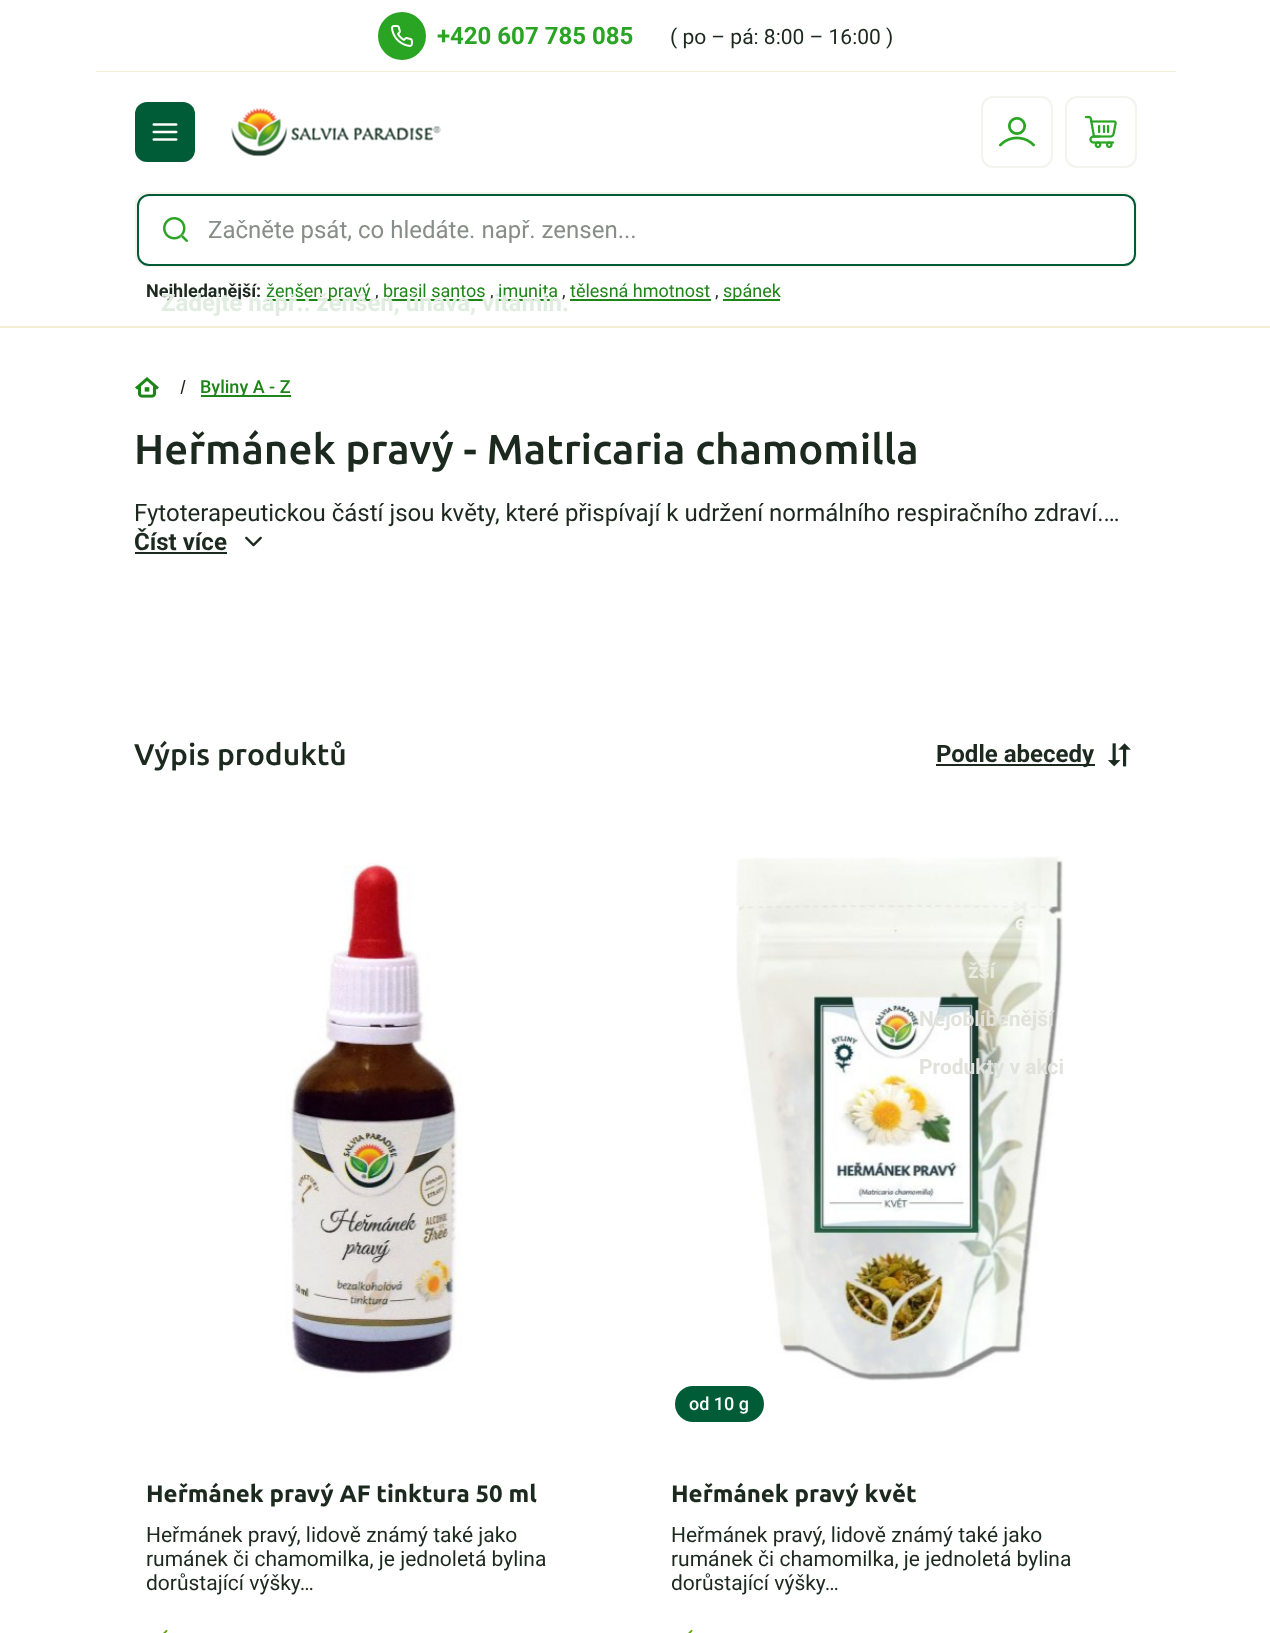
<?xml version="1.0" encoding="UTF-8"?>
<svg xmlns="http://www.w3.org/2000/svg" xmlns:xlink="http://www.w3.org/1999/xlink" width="1270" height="1633">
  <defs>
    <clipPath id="clip1"><rect x="209" y="216" width="843" height="29" /></clipPath>
  </defs>
  <rect width="100%" height="100%" fill="#ffffff" />
  <circle cx="402" cy="36" r="24" fill="#2aa423" />
  <image x="391" y="25" width="22" height="22" xlink:href="image1.png" />
  <rect x="96" y="71" width="1080" height="1" fill="#f4eed4" />
  <rect x="135" y="102" width="60" height="60" rx="12" fill="#005c37" />
  <image x="152" y="123" width="26" height="18" xlink:href="image2.png" />
  <image x="231" y="108" width="210" height="49" xlink:href="image3.png" />
  <rect x="982" y="97" width="70" height="70" rx="11" fill="none" stroke="#f4f3ee" stroke-width="2" />
  <image x="999" y="117" width="36" height="30" xlink:href="image4.png" />
  <rect x="1066" y="97" width="70" height="70" rx="11" fill="none" stroke="#f4f3ee" stroke-width="2" />
  <image x="1084" y="115" width="33" height="34" xlink:href="image5.png" />
  <rect x="136" y="193" width="1000" height="73" rx="11" fill="none" stroke="#f4f3ee" stroke-width="2" />
  <rect x="138" y="195" width="997" height="70" rx="11" fill="#ffffff" stroke="#005c37" stroke-width="2" />
  <image x="163" y="217" width="25" height="25" xlink:href="image6.png" />
  <rect x="266" y="299" width="105" height="2" fill="#1e8618" />
  <rect x="383" y="299" width="103" height="2" fill="#1e8618" />
  <rect x="498" y="299" width="60" height="2" fill="#1e8618" />
  <rect x="570" y="299" width="141" height="2" fill="#1e8618" />
  <rect x="723" y="299" width="57" height="2" fill="#1e8618" />
  <rect y="326" width="1270" height="2" fill="#f4eed4" />
  <image x="135" y="377" width="24" height="21" xlink:href="image7.png" />
  <path d="M 185.5 380 l -3.5 14 h -1.5 l 3.5 -14 z" fill="#1c291e" />
  <rect x="201" y="395" width="90" height="2" fill="#1e8618" />
  <rect x="135" y="552" width="92" height="2" fill="#1c291e" />
  <image x="245" y="536" width="17" height="11" xlink:href="image8.png" />
  <rect x="936" y="764" width="159" height="2" fill="#1c291e" />
  <image x="1108" y="743" width="23" height="24" xlink:href="image9.png" />
  <image x="285" y="862" width="177" height="515" xlink:href="image10.png" />
  <image x="163" y="1630" width="5" height="3" xlink:href="image11.png" />
  <image x="736" y="855" width="327" height="526" xlink:href="image12.png" />
  <rect x="675" y="1386" width="89" height="36" rx="18" fill="#005c37" />
  <image x="688" y="1630" width="5" height="3" xlink:href="image11.png" />
  <text x="437" y="44" style="font-family: Roboto; font-size: 24px; font-weight: bold; fill: #2aa423">+420 607 785 085</text>
  <text x="670" y="44" style="font-family: Roboto; font-size: 21px; fill: #1c291e">( po – pá: 8:00 – 16:00 )</text>
  <g clip-path="url(#clip1)">
    <text x="208" y="238" style="font-family: Roboto; font-size: 24px; fill: #878e88">Začněte psát, co hledáte. např. zensen...</text>
  </g>
  <text x="146" y="297" style="font-family: Roboto; font-size: 18px; font-weight: bold; fill: #1c291e">Nejhledanější:</text>
  <text x="266" y="297" style="font-family: Roboto; font-size: 18px; fill: #1e8618">ženšen pravý</text>
  <text x="375" y="297" style="font-family: Roboto; font-size: 18px; fill: #1c291e">,</text>
  <text x="383" y="297" style="font-family: Roboto; font-size: 18px; fill: #1e8618">brasil santos</text>
  <text x="490" y="297" style="font-family: Roboto; font-size: 18px; fill: #1c291e">,</text>
  <text x="498" y="297" style="font-family: Roboto; font-size: 18px; fill: #1e8618">imunita</text>
  <text x="562" y="297" style="font-family: Roboto; font-size: 18px; fill: #1c291e">,</text>
  <text x="161" y="311" style="font-family: Roboto; font-size: 24px; font-weight: bold; fill: #e1ede0">Zadejte např.: ženšen, únava, vitamin.</text>
  <text x="570" y="297" style="font-family: Roboto; font-size: 18px; fill: #1e8618">tělesná hmotnost</text>
  <text x="715" y="297" style="font-family: Roboto; font-size: 18px; fill: #1c291e">,</text>
  <text x="723" y="297" style="font-family: Roboto; font-size: 18px; fill: #1e8618">spánek</text>
  <text x="200" y="393" style="font-family: Roboto; font-size: 18px; font-weight: 500; fill: #1e8618">Byliny A - Z</text>
  <text x="134" y="464" style="font-family: Ubuntu; font-size: 42px; font-weight: 500; fill: #1c291e">Heřmánek pravý - Matricaria chamomilla</text>
  <text x="134" y="521" style="font-family: Roboto; font-size: 24px; fill: #1c291e">Fytoterapeutickou částí jsou květy, které přispívají k udržení normálního respiračního zdraví.…</text>
  <text x="134" y="550" style="font-family: Roboto; font-size: 24px; font-weight: bold; fill: #1c291e">Číst více</text>
  <text x="134" y="765" style="font-family: Ubuntu; font-size: 30px; font-weight: 500; fill: #1c291e">Výpis produktů</text>
  <text x="936" y="762" style="font-family: Roboto; font-size: 24px; font-weight: bold; fill: #1c291e">Podle abecedy</text>
  <text x="1015" y="930" style="font-family: Roboto; font-size: 21px; font-weight: bold; fill: #f3f5ee">e</text>
  <text x="968" y="978" style="font-family: Roboto; font-size: 21px; font-weight: bold; fill: #e9eae0">žší</text>
  <text x="919" y="1026" style="font-family: Roboto; font-size: 21px; font-weight: bold; fill: #e0e2db">Nejoblíbenější</text>
  <text x="919" y="1074" style="font-family: Roboto; font-size: 21px; font-weight: bold; fill: #e0e2db">Produkty v akci</text>
  <text x="146" y="1502" style="font-family: Ubuntu; font-size: 24px; font-weight: bold; fill: #1c291e">Heřmánek pravý AF tinktura 50 ml</text>
  <text x="146" y="1542" style="font-family: Roboto; font-size: 21px; fill: #1c291e">Heřmánek pravý, lidově známý také jako</text>
  <text x="146" y="1566" style="font-family: Roboto; font-size: 21px; fill: #1c291e">rumánek či chamomilka, je jednoletá bylina</text>
  <text x="146" y="1590" style="font-family: Roboto; font-size: 21px; fill: #1c291e">dorůstající výšky…</text>
  <text x="689" y="1410" style="font-family: Roboto; font-size: 18px; font-weight: 500; fill: #ffffff">od 10 g</text>
  <text x="671" y="1502" style="font-family: Ubuntu; font-size: 24px; font-weight: bold; fill: #1c291e">Heřmánek pravý květ</text>
  <text x="671" y="1542" style="font-family: Roboto; font-size: 21px; fill: #1c291e">Heřmánek pravý, lidově známý také jako</text>
  <text x="671" y="1566" style="font-family: Roboto; font-size: 21px; fill: #1c291e">rumánek či chamomilka, je jednoletá bylina</text>
  <text x="671" y="1590" style="font-family: Roboto; font-size: 21px; fill: #1c291e">dorůstající výšky…</text>
</svg>
